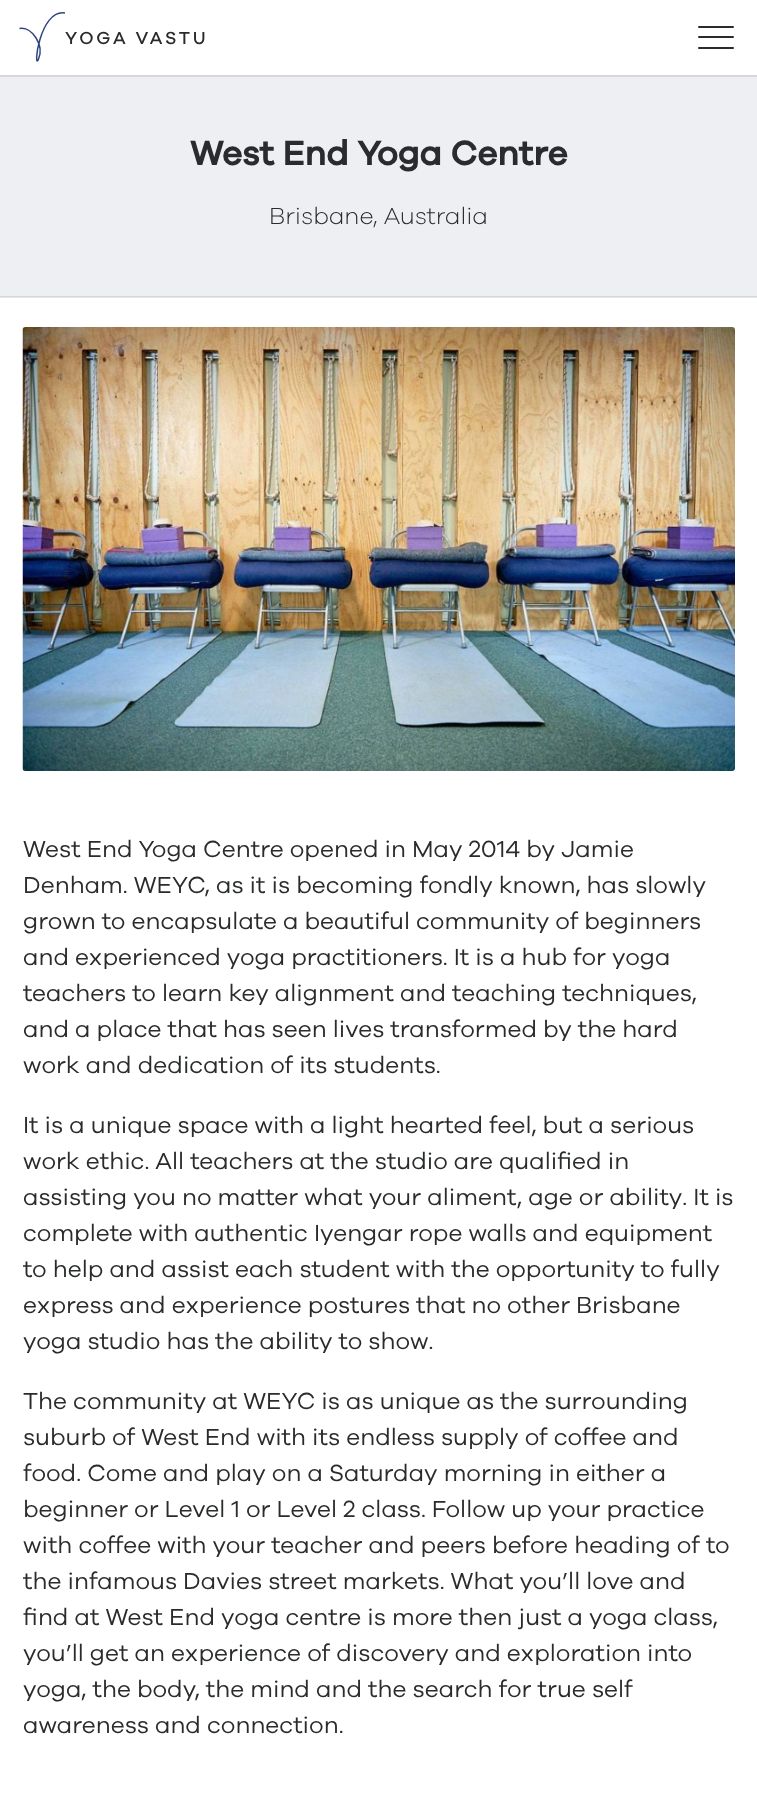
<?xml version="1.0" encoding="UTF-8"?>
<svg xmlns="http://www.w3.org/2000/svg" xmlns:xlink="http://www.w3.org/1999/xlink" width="757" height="1808">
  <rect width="100%" height="100%" fill="#ffffff" />
  <rect x="698" y="26" width="36" height="2" rx="1" fill="#292b2c" />
  <rect x="698" y="36" width="36" height="2" rx="1" fill="#292b2c" />
  <rect x="698" y="47" width="36" height="2" rx="1" fill="#292b2c" />
  <rect y="297" width="757" height="1" fill="#e6e6e6" />
  <rect y="77" width="757" height="219" fill="#edeff3" />
  <rect y="296" width="757" height="1" fill="#d5d7db" />
  <rect y="75" width="757" height="2" fill="#d5d7db" />
  <image x="22" y="327" width="713" height="444" xlink:href="image1.png" />
  <text x="65" y="44" style="font-family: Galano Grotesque; font-size: 18px; font-weight: 500; letter-spacing: 2.75px; fill: #292b2c">YOGA VASTU</text>
  <path d="M 19.5 28.5 c 12.5 -2 25 16.5 19 30.5 c -5.5 13.5 0.5 -50 26.5 -46" fill="none" stroke="#2f4581" stroke-width="1.5" />
  <text x="190" y="165" style="font-family: Galano Grotesque; font-size: 34.75px; font-weight: bold; fill: #292b2c">West End Yoga Centre</text>
  <text x="269" y="224" style="font-family: Galano Grotesque; font-size: 24px; font-weight: 300; fill: #292b2c">Brisbane, Australia</text>
  <text x="23" y="857" style="font-family: Galano Grotesque; font-size: 24px; fill: #292b2c">West End Yoga Centre opened in May 2014 by Jamie</text>
  <text x="23" y="893" style="font-family: Galano Grotesque; font-size: 24px; fill: #292b2c">Denham. WEYC, as it is becoming fondly known, has slowly</text>
  <text x="23" y="929" style="font-family: Galano Grotesque; font-size: 24px; fill: #292b2c">grown to encapsulate a beautiful community of beginners</text>
  <text x="23" y="965" style="font-family: Galano Grotesque; font-size: 24px; fill: #292b2c">and experienced yoga practitioners. It is a hub for yoga</text>
  <text x="23" y="1001" style="font-family: Galano Grotesque; font-size: 24px; fill: #292b2c">teachers to learn key alignment and teaching techniques,</text>
  <text x="23" y="1037" style="font-family: Galano Grotesque; font-size: 24px; fill: #292b2c">and a place that has seen lives transformed by the hard</text>
  <text x="23" y="1073" style="font-family: Galano Grotesque; font-size: 24px; fill: #292b2c">work and dedication of its students.</text>
  <text x="23" y="1133" style="font-family: Galano Grotesque; font-size: 24px; fill: #292b2c">It is a unique space with a light hearted feel, but a serious</text>
  <text x="23" y="1169" style="font-family: Galano Grotesque; font-size: 24px; fill: #292b2c">work ethic. All teachers at the studio are qualified in</text>
  <text x="23" y="1205" style="font-family: Galano Grotesque; font-size: 24px; fill: #292b2c">assisting you no matter what your aliment, age or ability. It is</text>
  <text x="23" y="1241" style="font-family: Galano Grotesque; font-size: 24px; fill: #292b2c">complete with authentic Iyengar rope walls and equipment</text>
  <text x="23" y="1277" style="font-family: Galano Grotesque; font-size: 24px; fill: #292b2c">to help and assist each student with the opportunity to fully</text>
  <text x="23" y="1313" style="font-family: Galano Grotesque; font-size: 24px; fill: #292b2c">express and experience postures that no other Brisbane</text>
  <text x="23" y="1349" style="font-family: Galano Grotesque; font-size: 24px; fill: #292b2c">yoga studio has the ability to show.</text>
  <text x="23" y="1409" style="font-family: Galano Grotesque; font-size: 24px; fill: #292b2c">The community at WEYC is as unique as the surrounding</text>
  <text x="23" y="1445" style="font-family: Galano Grotesque; font-size: 24px; fill: #292b2c">suburb of West End with its endless supply of coffee and</text>
  <text x="23" y="1481" style="font-family: Galano Grotesque; font-size: 24px; fill: #292b2c">food. Come and play on a Saturday morning in either a</text>
  <text x="23" y="1517" style="font-family: Galano Grotesque; font-size: 24px; fill: #292b2c">beginner or Level 1 or Level 2 class. Follow up your practice</text>
  <text x="23" y="1553" style="font-family: Galano Grotesque; font-size: 24px; fill: #292b2c">with coffee with your teacher and peers before heading of to</text>
  <text x="23" y="1589" style="font-family: Galano Grotesque; font-size: 24px; fill: #292b2c">the infamous Davies street markets. What you’ll love and</text>
  <text x="23" y="1625" style="font-family: Galano Grotesque; font-size: 24px; fill: #292b2c">find at West End yoga centre is more then just a yoga class,</text>
  <text x="23" y="1661" style="font-family: Galano Grotesque; font-size: 24px; fill: #292b2c">you’ll get an experience of discovery and exploration into</text>
  <text x="23" y="1697" style="font-family: Galano Grotesque; font-size: 24px; fill: #292b2c">yoga, the body, the mind and the search for true self</text>
  <text x="23" y="1733" style="font-family: Galano Grotesque; font-size: 24px; fill: #292b2c">awareness and connection.</text>
</svg>
